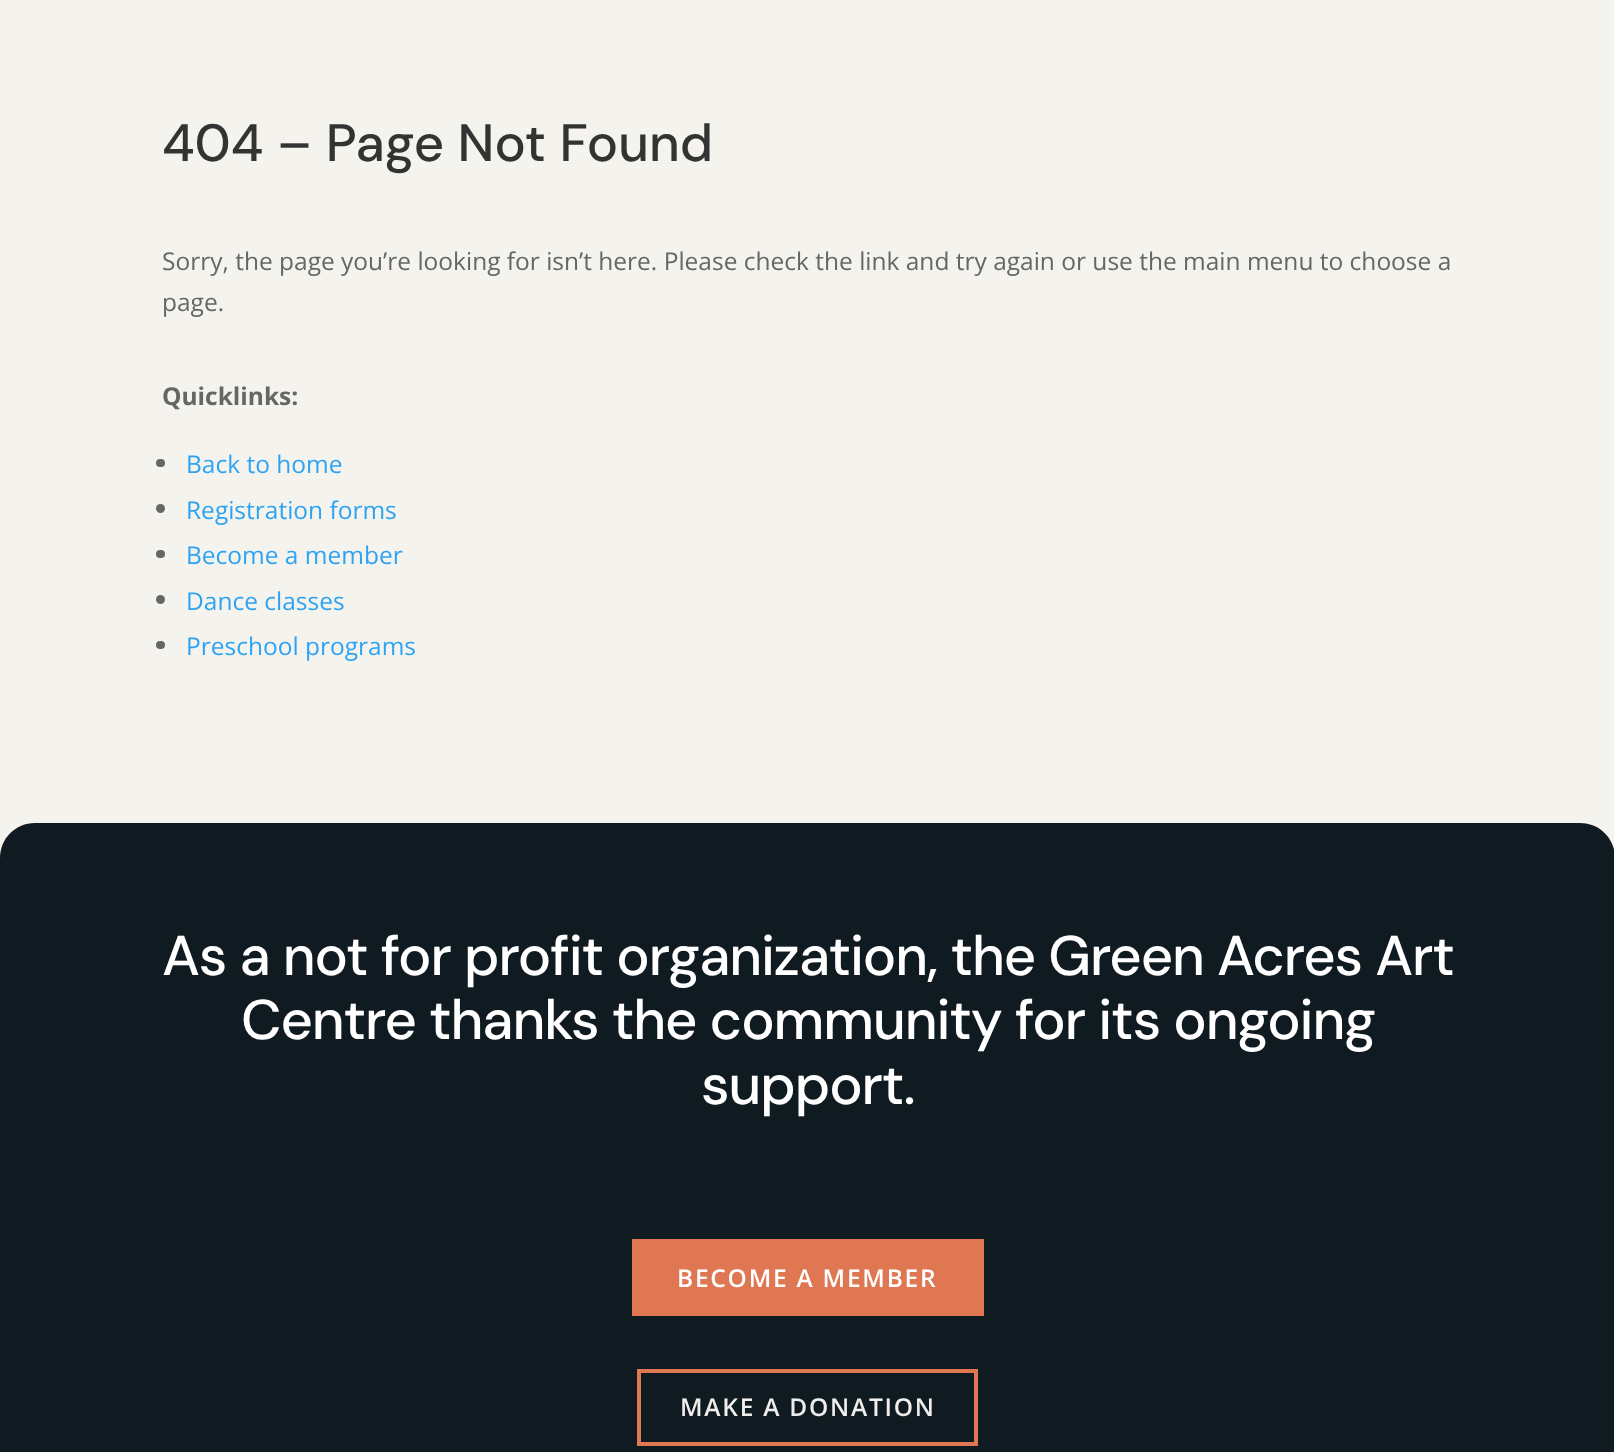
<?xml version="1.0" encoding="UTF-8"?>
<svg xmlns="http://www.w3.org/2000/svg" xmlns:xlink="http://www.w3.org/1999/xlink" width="1614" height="1452">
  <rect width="100%" height="100%" fill="#f5f3ee" />
  <rect x="156" y="459" width="9" height="8" rx="4" fill="#666666" />
  <circle cx="160.5" cy="508.5" r="4.5" fill="#666666" />
  <rect x="156" y="550" width="9" height="8" rx="4" fill="#666666" />
  <circle cx="160.5" cy="599.5" r="4.5" fill="#666666" />
  <rect x="156" y="641" width="9" height="8" rx="4" fill="#666666" />
  <path d="M 35 823 h 1545 c 19.5 0 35 15.5 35 35 v 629 h -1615 v -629 c 0 -19.5 15.5 -35 35 -35 z" fill="#101a21" />
  <rect x="632" y="1239" width="352" height="77" fill="#df7752" />
  <rect x="639" y="1371" width="337" height="73" fill="none" stroke="#df7752" stroke-width="4" />
  <text x="162" y="161" style="font-family: DM Sans; font-size: 52.5px; font-weight: 500; fill: #333333">404 – Page Not Found</text>
  <text x="162" y="270" style="font-family: Open Sans; font-size: 24.5px; fill: #666666">Sorry, the page you’re looking for isn’t here. Please check the link and try again or use the main menu to choose a</text>
  <text x="162" y="311" style="font-family: Open Sans; font-size: 24.5px; fill: #666666">page.</text>
  <text x="162" y="405" style="font-family: Open Sans; font-size: 24.5px; font-weight: bold; fill: #666666">Quicklinks:</text>
  <text x="186" y="473" style="font-family: Open Sans; font-size: 24.5px; fill: #2ea3f2">Back to home</text>
  <text x="186" y="519" style="font-family: Open Sans; font-size: 24.5px; fill: #2ea3f2">Registration forms</text>
  <text x="186" y="564" style="font-family: Open Sans; font-size: 24.5px; fill: #2ea3f2">Become a member</text>
  <text x="186" y="610" style="font-family: Open Sans; font-size: 24.5px; fill: #2ea3f2">Dance classes</text>
  <text x="186" y="655" style="font-family: Open Sans; font-size: 24.5px; fill: #2ea3f2">Preschool programs</text>
  <text x="162" y="975" style="font-family: DM Sans; font-size: 56px; font-weight: 500; letter-spacing: -1.12px; fill: #ffffff">As a not for profit organization, the Green Acres Art</text>
  <text x="241" y="1039" style="font-family: DM Sans; font-size: 56px; font-weight: 500; letter-spacing: -1.12px; fill: #ffffff">Centre thanks the community for its ongoing</text>
  <text x="701" y="1104" style="font-family: DM Sans; font-size: 56px; font-weight: 500; letter-spacing: -1.12px; fill: #ffffff">support.</text>
  <text x="677" y="1287" style="font-family: Open Sans; font-size: 24.5px; font-weight: 600; letter-spacing: 1.75px; fill: #ffffff">BECOME A MEMBER</text>
  <text x="680" y="1416" style="font-family: Open Sans; font-size: 24.5px; font-weight: 600; letter-spacing: 1.75px; fill: #f0eeec">MAKE A DONATION</text>
</svg>
